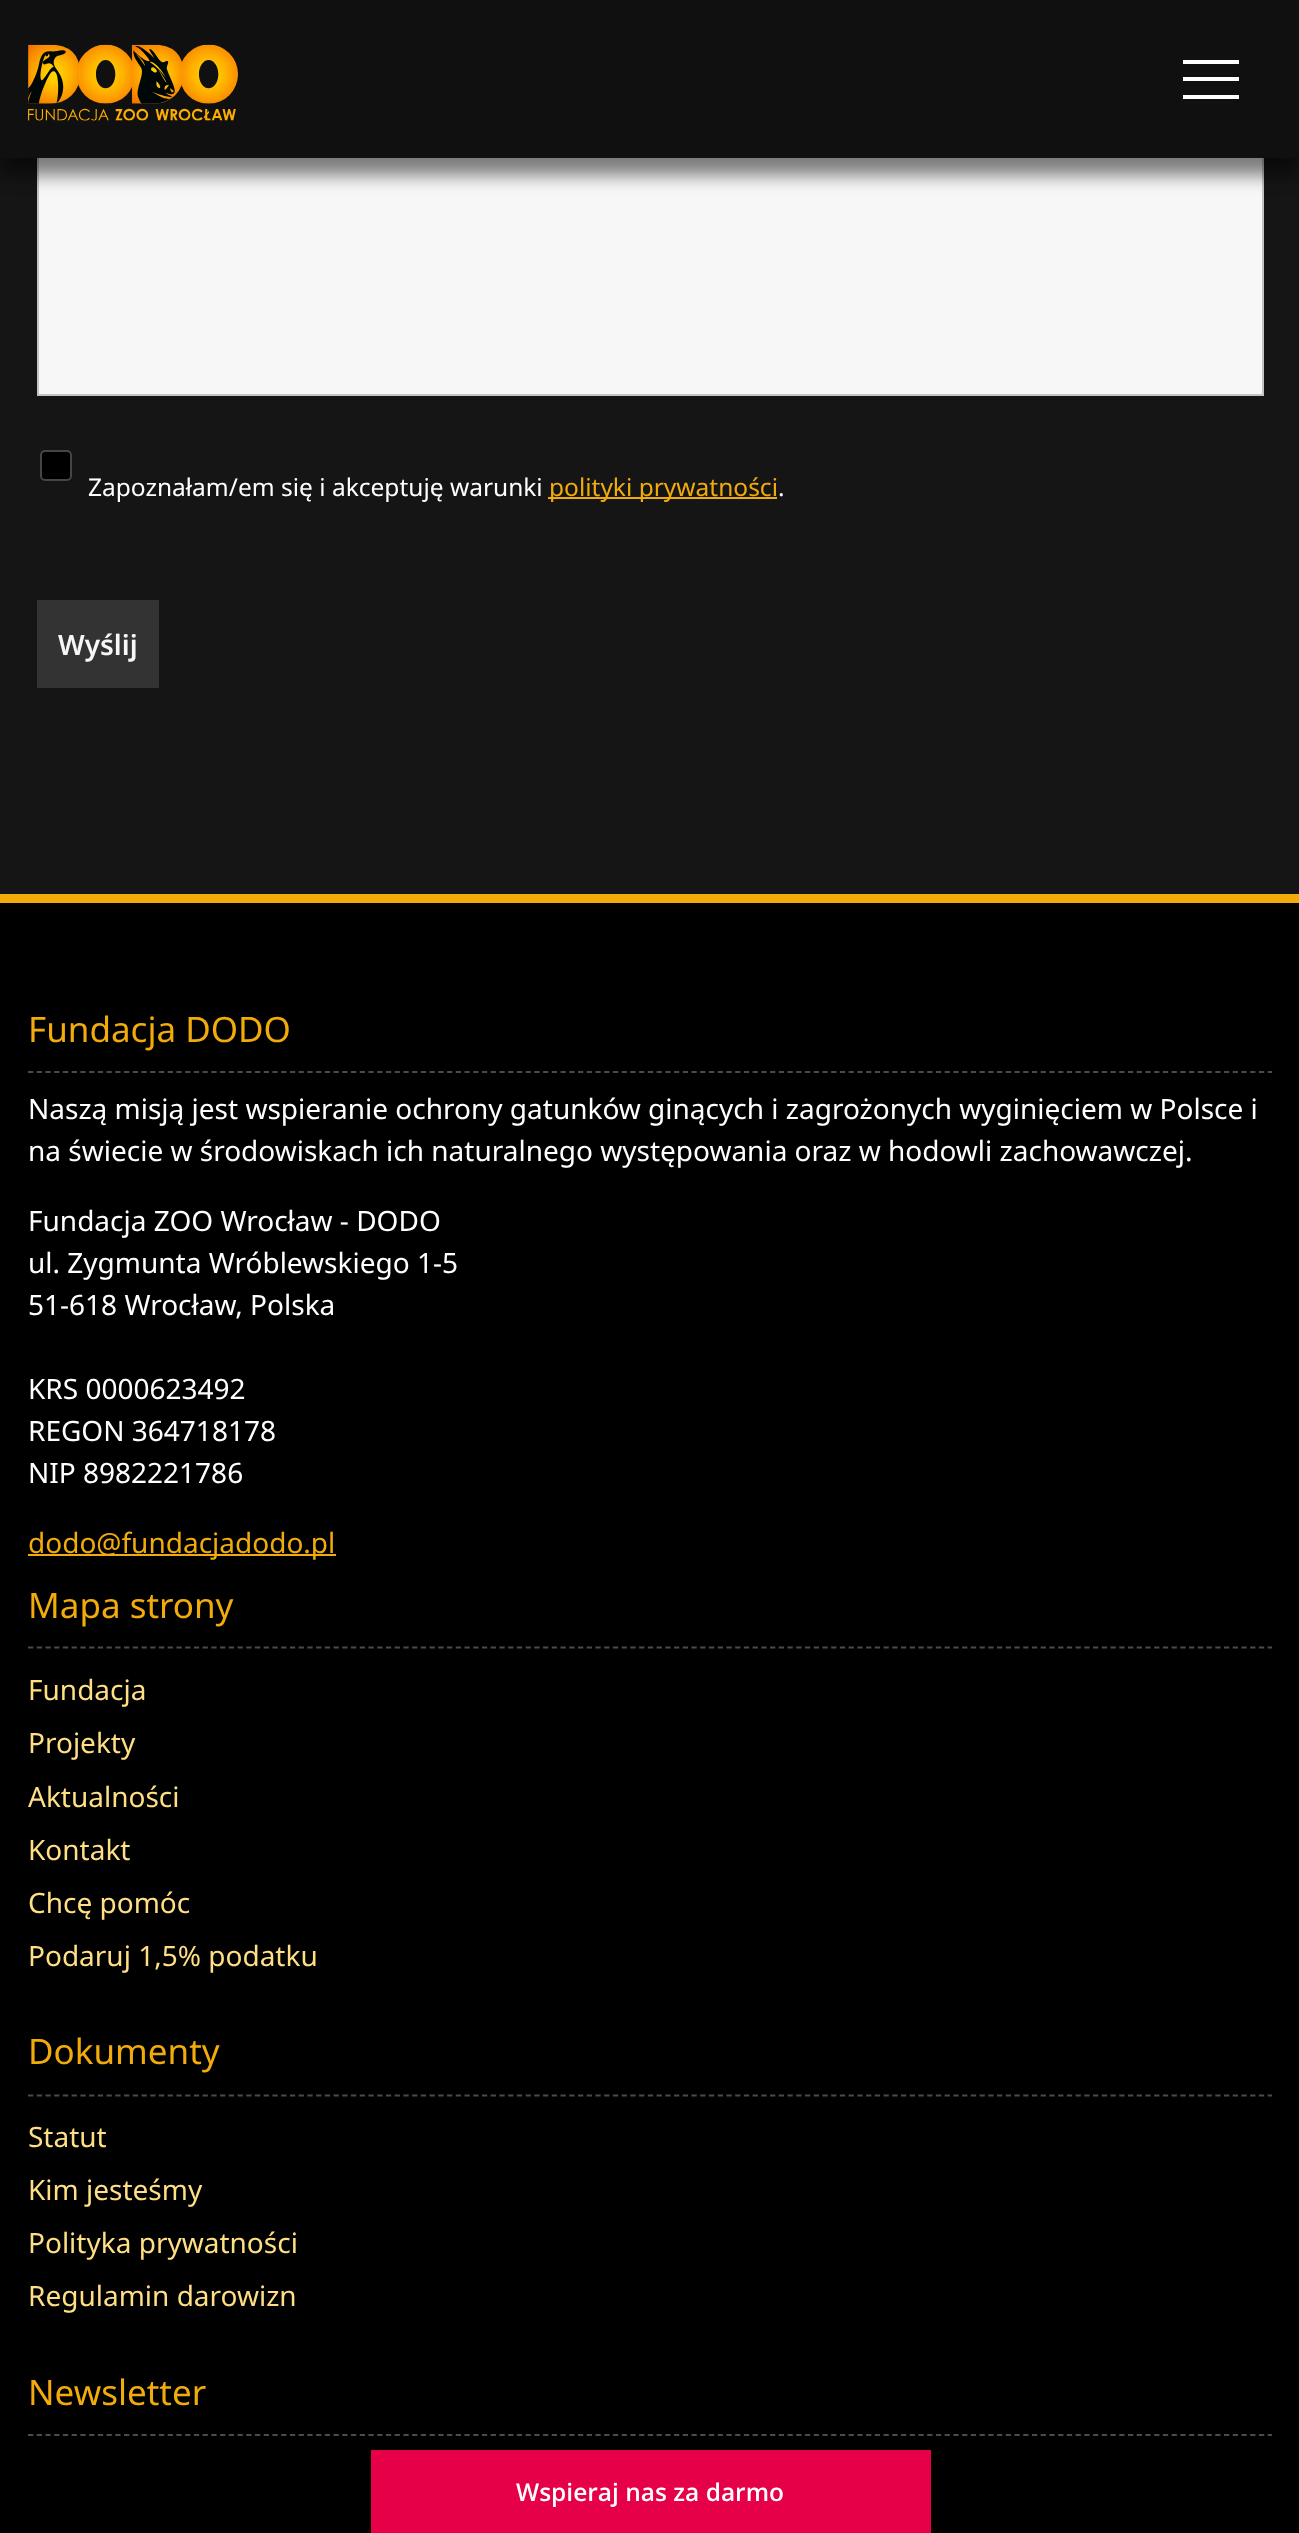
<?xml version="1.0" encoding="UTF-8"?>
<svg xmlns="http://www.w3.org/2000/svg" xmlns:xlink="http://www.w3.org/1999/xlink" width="1299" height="2533">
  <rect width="100%" height="100%" fill="#151515" />
  <rect x="39" y="158" width="1223" height="236" fill="#f7f7f7" />
  <rect x="38" y="47" width="1225" height="348" fill="none" stroke="#c4c4c4" stroke-width="2" />
  <rect y="18" width="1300" height="157" fill="#000000" fill-opacity="0.5" filter="blur(9px)" />
  <rect width="1299" height="158" fill="#101010" />
  <image x="28" y="44" width="210" height="77" xlink:href="image1.png" />
  <rect x="1183" y="77" width="56" height="4" fill="#ffffff" />
  <rect x="1183" y="60" width="56" height="4" fill="#ffffff" />
  <rect x="1183" y="95" width="56" height="4" fill="#ffffff" />
  <rect x="41" y="451" width="30" height="29" rx="4" fill="#000000" stroke="#454545" stroke-width="2" />
  <rect x="548" y="497" width="229" height="2" fill="#f1ac0c" />
  <rect x="37" y="600" width="122" height="88" fill="#333333" />
  <rect y="903" width="1299" height="1630" fill="#000000" />
  <rect y="894" width="1299" height="9" fill="#f1ac0c" />
  <path d="M 28 1072 h 1244" fill="none" stroke="#4b4b4b" stroke-width="1.8" stroke-dasharray="5.25 3.48" />
  <rect x="28" y="1554" width="308" height="2" fill="#f1ac0c" />
  <path d="M 28 1647.5 h 1244" fill="none" stroke="#4b4b4b" stroke-width="1.8" stroke-dasharray="5.25 3.48" />
  <path d="M 28 2095.5 h 1244" fill="none" stroke="#4b4b4b" stroke-width="1.8" stroke-dasharray="5.25 3.48" />
  <path d="M 28 2435 h 1244" fill="none" stroke="#4b4b4b" stroke-width="1.8" stroke-dasharray="5.25 3.48" />
  <rect x="371" y="2450" width="560" height="83" fill="#e50048" />
  <text x="88" y="496" style="font-family: Noto Sans; font-size: 24.5px; fill: #ffffff">Zapoznałam/em się i akceptuję warunki</text>
  <text x="549" y="496" style="font-family: Noto Sans; font-size: 24.5px; fill: #f1ac0c">polityki prywatności</text>
  <text x="778" y="496" style="font-family: Noto Sans; font-size: 24.5px; fill: #ffffff">.</text>
  <text x="58" y="655" style="font-family: Noto Sans; font-size: 28px; font-weight: 600; fill: #f7f7f7">Wyślij</text>
  <text x="28" y="1042" style="font-family: Noto Sans; font-size: 35px; fill: #f1ac0c">Fundacja DODO</text>
  <text x="28" y="1119" style="font-family: Noto Sans; font-size: 28px; fill: #ffffff">Naszą misją jest wspieranie ochrony gatunków ginących i zagrożonych wyginięciem w Polsce i</text>
  <text x="28" y="1161" style="font-family: Noto Sans; font-size: 28px; fill: #ffffff">na świecie w środowiskach ich naturalnego występowania oraz w hodowli zachowawczej.</text>
  <text x="28" y="1231" style="font-family: Noto Sans; font-size: 28px; fill: #ffffff">Fundacja ZOO Wrocław - DODO</text>
  <text x="28" y="1273" style="font-family: Noto Sans; font-size: 28px; fill: #ffffff">ul. Zygmunta Wróblewskiego 1-5</text>
  <text x="28" y="1315" style="font-family: Noto Sans; font-size: 28px; fill: #ffffff">51-618 Wrocław, Polska</text>
  <text x="28" y="1399" style="font-family: Noto Sans; font-size: 28px; fill: #ffffff">KRS 0000623492</text>
  <text x="28" y="1441" style="font-family: Noto Sans; font-size: 28px; fill: #ffffff">REGON 364718178</text>
  <text x="28" y="1483" style="font-family: Noto Sans; font-size: 28px; fill: #ffffff">NIP 8982221786</text>
  <text x="28" y="1553" style="font-family: Noto Sans; font-size: 28px; fill: #f1ac0c">dodo@fundacjadodo.pl</text>
  <text x="28" y="1618" style="font-family: Noto Sans; font-size: 35px; fill: #f1ac0c">Mapa strony</text>
  <text x="28" y="1700" style="font-family: Noto Sans; font-size: 28px; fill: #ffdf84">Fundacja</text>
  <text x="28" y="1753" style="font-family: Noto Sans; font-size: 28px; fill: #ffdf84">Projekty</text>
  <text x="28" y="1807" style="font-family: Noto Sans; font-size: 28px; fill: #ffdf84">Aktualności</text>
  <text x="28" y="1860" style="font-family: Noto Sans; font-size: 28px; fill: #ffdf84">Kontakt</text>
  <text x="28" y="1913" style="font-family: Noto Sans; font-size: 28px; fill: #ffdf84">Chcę pomóc</text>
  <text x="28" y="1966" style="font-family: Noto Sans; font-size: 28px; fill: #ffdf84">Podaruj 1,5% podatku</text>
  <text x="28" y="2064" style="font-family: Noto Sans; font-size: 35px; fill: #f1ac0c">Dokumenty</text>
  <text x="28" y="2147" style="font-family: Noto Sans; font-size: 28px; fill: #ffdf84">Statut</text>
  <text x="28" y="2200" style="font-family: Noto Sans; font-size: 28px; fill: #ffdf84">Kim jesteśmy</text>
  <text x="28" y="2253" style="font-family: Noto Sans; font-size: 28px; fill: #ffdf84">Polityka prywatności</text>
  <text x="28" y="2306" style="font-family: Noto Sans; font-size: 28px; fill: #ffdf84">Regulamin darowizn</text>
  <text x="28" y="2405" style="font-family: Noto Sans; font-size: 35px; fill: #f1ac0c">Newsletter</text>
  <text x="516" y="2501" style="font-family: Open Sans; font-size: 24.5px; font-weight: 600; fill: #ffffff">Wspieraj nas za darmo</text>
</svg>
